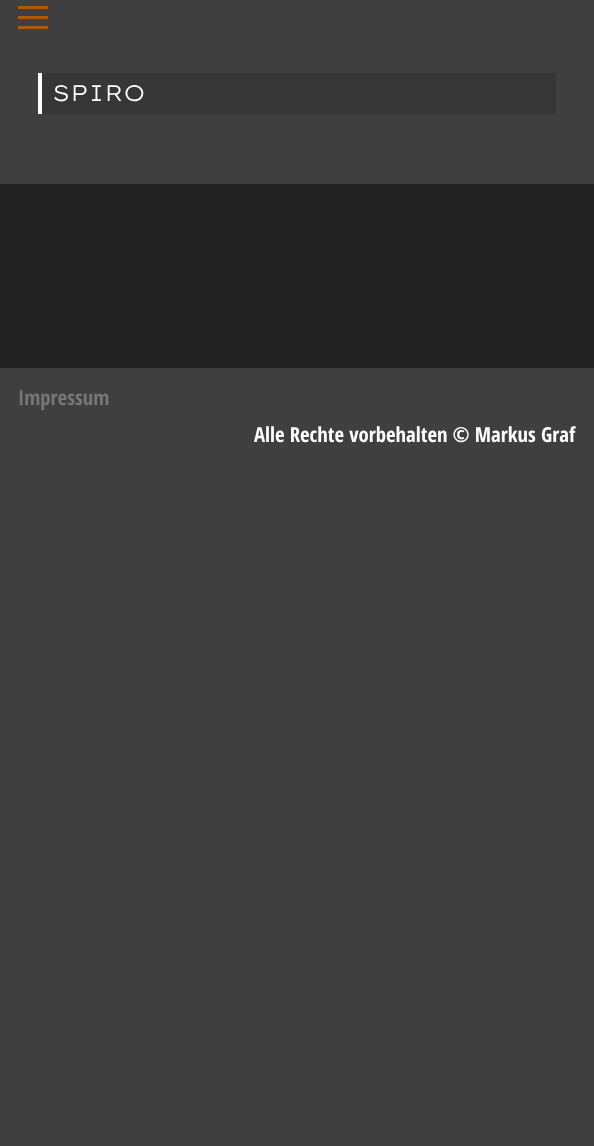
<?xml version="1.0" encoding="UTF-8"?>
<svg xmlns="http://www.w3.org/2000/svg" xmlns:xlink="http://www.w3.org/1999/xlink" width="594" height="1146">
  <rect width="100%" height="100%" fill="#403f3f" />
  <rect x="18" y="16" width="30" height="3" fill="#ab5a0d" />
  <rect x="18" y="6" width="30" height="3" fill="#ab5a0d" />
  <rect x="18" y="26" width="30" height="3" fill="#ab5a0d" />
  <rect x="42" y="73" width="514" height="41" fill="#373636" />
  <rect x="38" y="73" width="4" height="41" fill="#ffffff" />
  <rect y="184" width="594" height="184" fill="#222222" />
  <text x="52" y="101" style="font-family: Lexend Mega; font-size: 22.5px; font-weight: 300; fill: #ffffff">SPIRO</text>
  <text x="18" y="405" style="font-family: Open Sans Condensed; font-size: 20.75px; font-weight: bold; fill: #777777">Impressum</text>
  <text x="254" y="442" style="font-family: Open Sans Condensed; font-size: 20.75px; font-weight: bold; fill: #ffffff">Alle Rechte vorbehalten © Markus Graf</text>
</svg>
